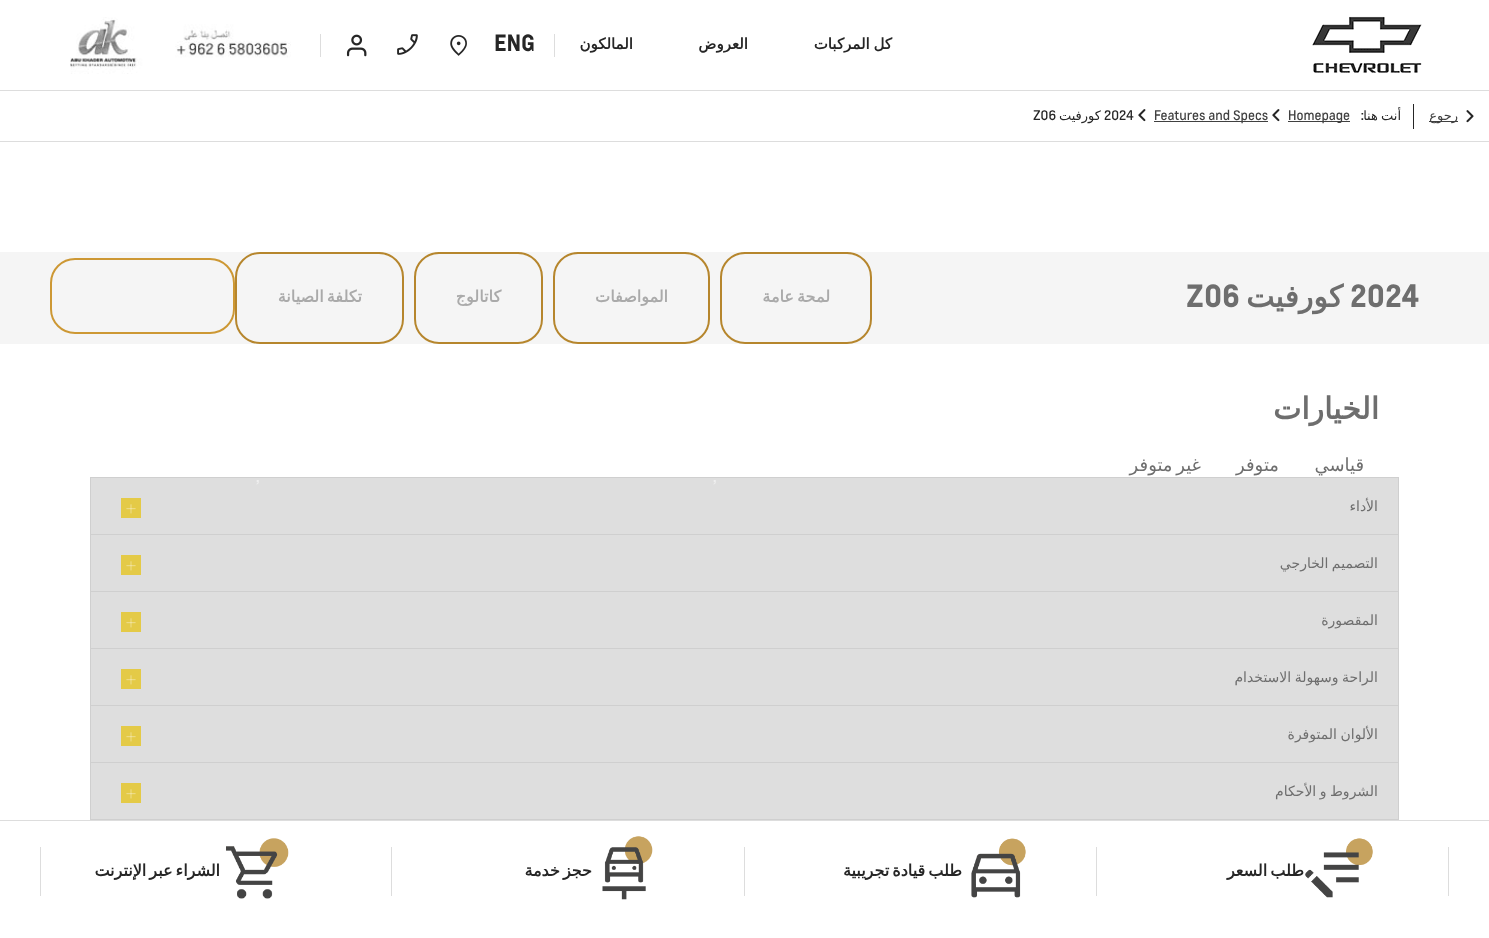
<?xml version="1.0" encoding="UTF-8"?>
<svg xmlns="http://www.w3.org/2000/svg" xmlns:xlink="http://www.w3.org/1999/xlink" width="1489" height="938">
  <rect width="100%" height="100%" fill="#ffffff" />
  <image x="1312" y="16" width="110" height="57" xlink:href="image1.png" />
  <rect x="554" y="34" width="1" height="23" fill="#dddddd" />
  <image x="450" y="35" width="17" height="21" xlink:href="image2.png" />
  <image x="397" y="34" width="21" height="21" xlink:href="image3.png" />
  <image x="346" y="34" width="21" height="23" xlink:href="image4.png" />
  <rect x="320" y="34" width="1" height="23" fill="#dddddd" />
  <image x="70" y="17" width="221" height="57" xlink:href="image5.png" />
  <rect y="90" width="1489" height="1" fill="#dddddd" />
  <rect y="141" width="1489" height="1" fill="#dddddd" />
  <image x="1466" y="110" width="8" height="13" xlink:href="image6.png" />
  <rect x="1429" y="121" width="29" height="1" fill="#404040" />
  <rect x="1413" y="104" width="1" height="25" fill="#262626" />
  <rect x="1288" y="121" width="62" height="1" fill="#404040" />
  <image x="1272" y="109" width="8" height="13" xlink:href="image7.png" />
  <rect x="1154" y="121" width="114" height="1" fill="#404040" />
  <image x="1138" y="109" width="8" height="13" xlink:href="image7.png" />
  <rect y="252" width="1489" height="92" fill="#f5f5f5" />
  <rect x="721" y="253" width="150" height="90" rx="24" fill="none" stroke="#b6862d" stroke-width="2" />
  <rect x="554" y="253" width="155" height="90" rx="24" fill="none" stroke="#b6862d" stroke-width="2" />
  <rect x="415" y="253" width="127" height="90" rx="24" fill="none" stroke="#b6862d" stroke-width="2" />
  <rect x="236" y="253" width="167" height="90" rx="24" fill="none" stroke="#b6862d" stroke-width="2" />
  <rect x="51" y="259" width="183" height="74" rx="24" fill="none" stroke="#cd9834" stroke-width="2" />
  <rect x="90.5" y="477.5" width="1308" height="57" fill="#dedede" stroke="#cfcfcf" />
  <rect x="121" y="498" width="20" height="20" fill="#e4ca47" />
  <image x="126" y="504" width="10" height="10" xlink:href="image8.png" />
  <rect x="90.5" y="534.5" width="1308" height="57" fill="#dedede" stroke="#cfcfcf" />
  <rect x="121" y="555" width="20" height="20" fill="#e4ca47" />
  <image x="126" y="561" width="10" height="10" xlink:href="image8.png" />
  <rect x="90.5" y="591.5" width="1308" height="57" fill="#dedede" stroke="#cfcfcf" />
  <rect x="121" y="612" width="20" height="20" fill="#e4ca47" />
  <image x="126" y="618" width="10" height="10" xlink:href="image8.png" />
  <rect x="90.5" y="648.5" width="1308" height="57" fill="#dedede" stroke="#cfcfcf" />
  <rect x="121" y="669" width="20" height="20" fill="#e4ca47" />
  <image x="126" y="675" width="10" height="10" xlink:href="image8.png" />
  <rect x="90.5" y="705.5" width="1308" height="57" fill="#dedede" stroke="#cfcfcf" />
  <rect x="121" y="726" width="20" height="20" fill="#e4ca47" />
  <image x="126" y="732" width="10" height="10" xlink:href="image8.png" />
  <rect x="90.5" y="762.5" width="1308" height="57" fill="#dedede" stroke="#cfcfcf" />
  <rect x="121" y="783" width="20" height="20" fill="#e4ca47" />
  <image x="126" y="789" width="10" height="10" xlink:href="image8.png" />
  <rect y="820" width="1489" height="1" fill="#dddddd" />
  <rect x="1448" y="847" width="1" height="49" fill="#dddddd" />
  <image x="1305" y="838" width="68" height="60" xlink:href="image9.png" />
  <rect x="1096" y="847" width="1" height="49" fill="#dddddd" />
  <image x="971" y="838" width="55" height="60" xlink:href="image10.png" />
  <rect x="744" y="847" width="1" height="49" fill="#dddddd" />
  <image x="602" y="836" width="51" height="64" xlink:href="image11.png" />
  <rect x="391" y="847" width="1" height="49" fill="#dddddd" />
  <image x="226" y="838" width="63" height="61" xlink:href="image12.png" />
  <rect x="40" y="847" width="1" height="49" fill="#dddddd" />
  <text x="494" y="51" style="font-family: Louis; font-size: 22px; font-weight: bold; fill: #262626">ENG</text>
  <text x="1458" y="120" style="font-family: DejaVu Sans; font-size: 13px; direction: rtl; fill: #404040">رجوع</text>
  <text x="1401" y="120" word-spacing="-1" style="font-family: DejaVu Sans; font-size: 13px; direction: rtl; fill: #262626">أنت هنا</text>
  <text x="1364" y="120" style="font-family: Louis; font-size: 13px; direction: rtl; fill: #262626">:</text>
  <text x="1288" y="120" style="font-family: Louis; font-size: 13px; fill: #404040">Homepage</text>
  <text x="1154" y="120" style="font-family: Louis; font-size: 13px; fill: #404040">Features and Specs</text>
  <text x="1104" y="120" style="font-family: Louis; font-size: 13px; fill: #262626">2024</text>
  <text x="1101" y="120" style="font-family: DejaVu Sans; font-size: 13px; direction: rtl; fill: #262626">كورفيت</text>
  <text x="1033" y="120" style="font-family: Louis; font-size: 13px; fill: #262626">Z06</text>
  <text x="892" y="49" word-spacing="-1" style="font-family: DejaVu Sans; font-size: 15px; font-weight: bold; direction: rtl; fill: #262626">كل المركبات</text>
  <text x="748" y="49" style="font-family: DejaVu Sans; font-size: 15px; font-weight: bold; direction: rtl; fill: #262626">العروض</text>
  <text x="633" y="49" style="font-family: DejaVu Sans; font-size: 15px; font-weight: bold; direction: rtl; fill: #262626">المالكون</text>
  <text x="713" y="482" style="font-family: Louis; font-size: 15px; fill: #efefef">,</text>
  <text x="256" y="482" style="font-family: Louis; font-size: 15px; fill: #efefef">,</text>
  <text x="1350" y="307" style="font-family: Louis; font-size: 30px; font-weight: bold; fill: #6e6e6e">2024</text>
  <text x="1343" y="307" style="font-family: DejaVu Sans; font-size: 30px; font-weight: bold; direction: rtl; fill: #6e6e6e">كورفيت</text>
  <text x="1186" y="307" style="font-family: Louis; font-size: 30px; font-weight: bold; fill: #6e6e6e">Z06</text>
  <text x="830" y="302" word-spacing="-2" style="font-family: DejaVu Sans; font-size: 16px; font-weight: bold; direction: rtl; fill: #aaaaaa">لمحة عامة</text>
  <text x="668" y="302" style="font-family: DejaVu Sans; font-size: 16px; font-weight: bold; direction: rtl; fill: #aaaaaa">المواصفات</text>
  <text x="501" y="302" style="font-family: DejaVu Sans; font-size: 16px; font-weight: bold; direction: rtl; fill: #aaaaaa">كاتالوج</text>
  <text x="362" y="302" word-spacing="-2" style="font-family: DejaVu Sans; font-size: 16px; font-weight: bold; direction: rtl; fill: #aaaaaa">تكلفة الصيانة</text>
  <text x="1379" y="419" style="font-family: DejaVu Sans; font-size: 30px; font-weight: bold; direction: rtl; fill: #6e6e6e">الخيارات</text>
  <text x="1364" y="471" style="font-family: DejaVu Sans; font-size: 18px; direction: rtl; fill: #6e6e6e">قياسي</text>
  <text x="1279" y="471" style="font-family: DejaVu Sans; font-size: 18px; direction: rtl; fill: #6e6e6e">متوفر</text>
  <text x="1201" y="471" word-spacing="-2" style="font-family: DejaVu Sans; font-size: 18px; direction: rtl; fill: #6e6e6e">غير متوفر</text>
  <text x="1378" y="511" style="font-family: DejaVu Sans; font-size: 14px; direction: rtl; fill: #6e6e6e">الأداء</text>
  <text x="1378" y="568" word-spacing="-1" style="font-family: DejaVu Sans; font-size: 14px; direction: rtl; fill: #6e6e6e">التصميم الخارجي</text>
  <text x="1378" y="625" style="font-family: DejaVu Sans; font-size: 14px; direction: rtl; fill: #6e6e6e">المقصورة</text>
  <text x="1378" y="682" word-spacing="-1" style="font-family: DejaVu Sans; font-size: 14px; direction: rtl; fill: #6e6e6e">الراحة وسهولة الاستخدام</text>
  <text x="1378" y="739" word-spacing="-1" style="font-family: DejaVu Sans; font-size: 14px; direction: rtl; fill: #6e6e6e">الألوان المتوفرة</text>
  <text x="1378" y="796" word-spacing="-1" style="font-family: DejaVu Sans; font-size: 14px; direction: rtl; fill: #6e6e6e">الشروط و الأحكام</text>
  <text x="1304" y="876" word-spacing="-2" style="font-family: DejaVu Sans; font-size: 16px; font-weight: bold; direction: rtl; fill: #262626">طلب السعر</text>
  <text x="962" y="876" word-spacing="-2" style="font-family: DejaVu Sans; font-size: 16px; font-weight: bold; direction: rtl; fill: #262626">طلب قيادة تجريبية</text>
  <text x="592" y="876" word-spacing="-2" style="font-family: DejaVu Sans; font-size: 16px; font-weight: bold; direction: rtl; fill: #262626">حجز خدمة</text>
  <text x="220" y="876" word-spacing="-2" style="font-family: DejaVu Sans; font-size: 16px; font-weight: bold; direction: rtl; fill: #262626">الشراء عبر الإنترنت</text>
</svg>
